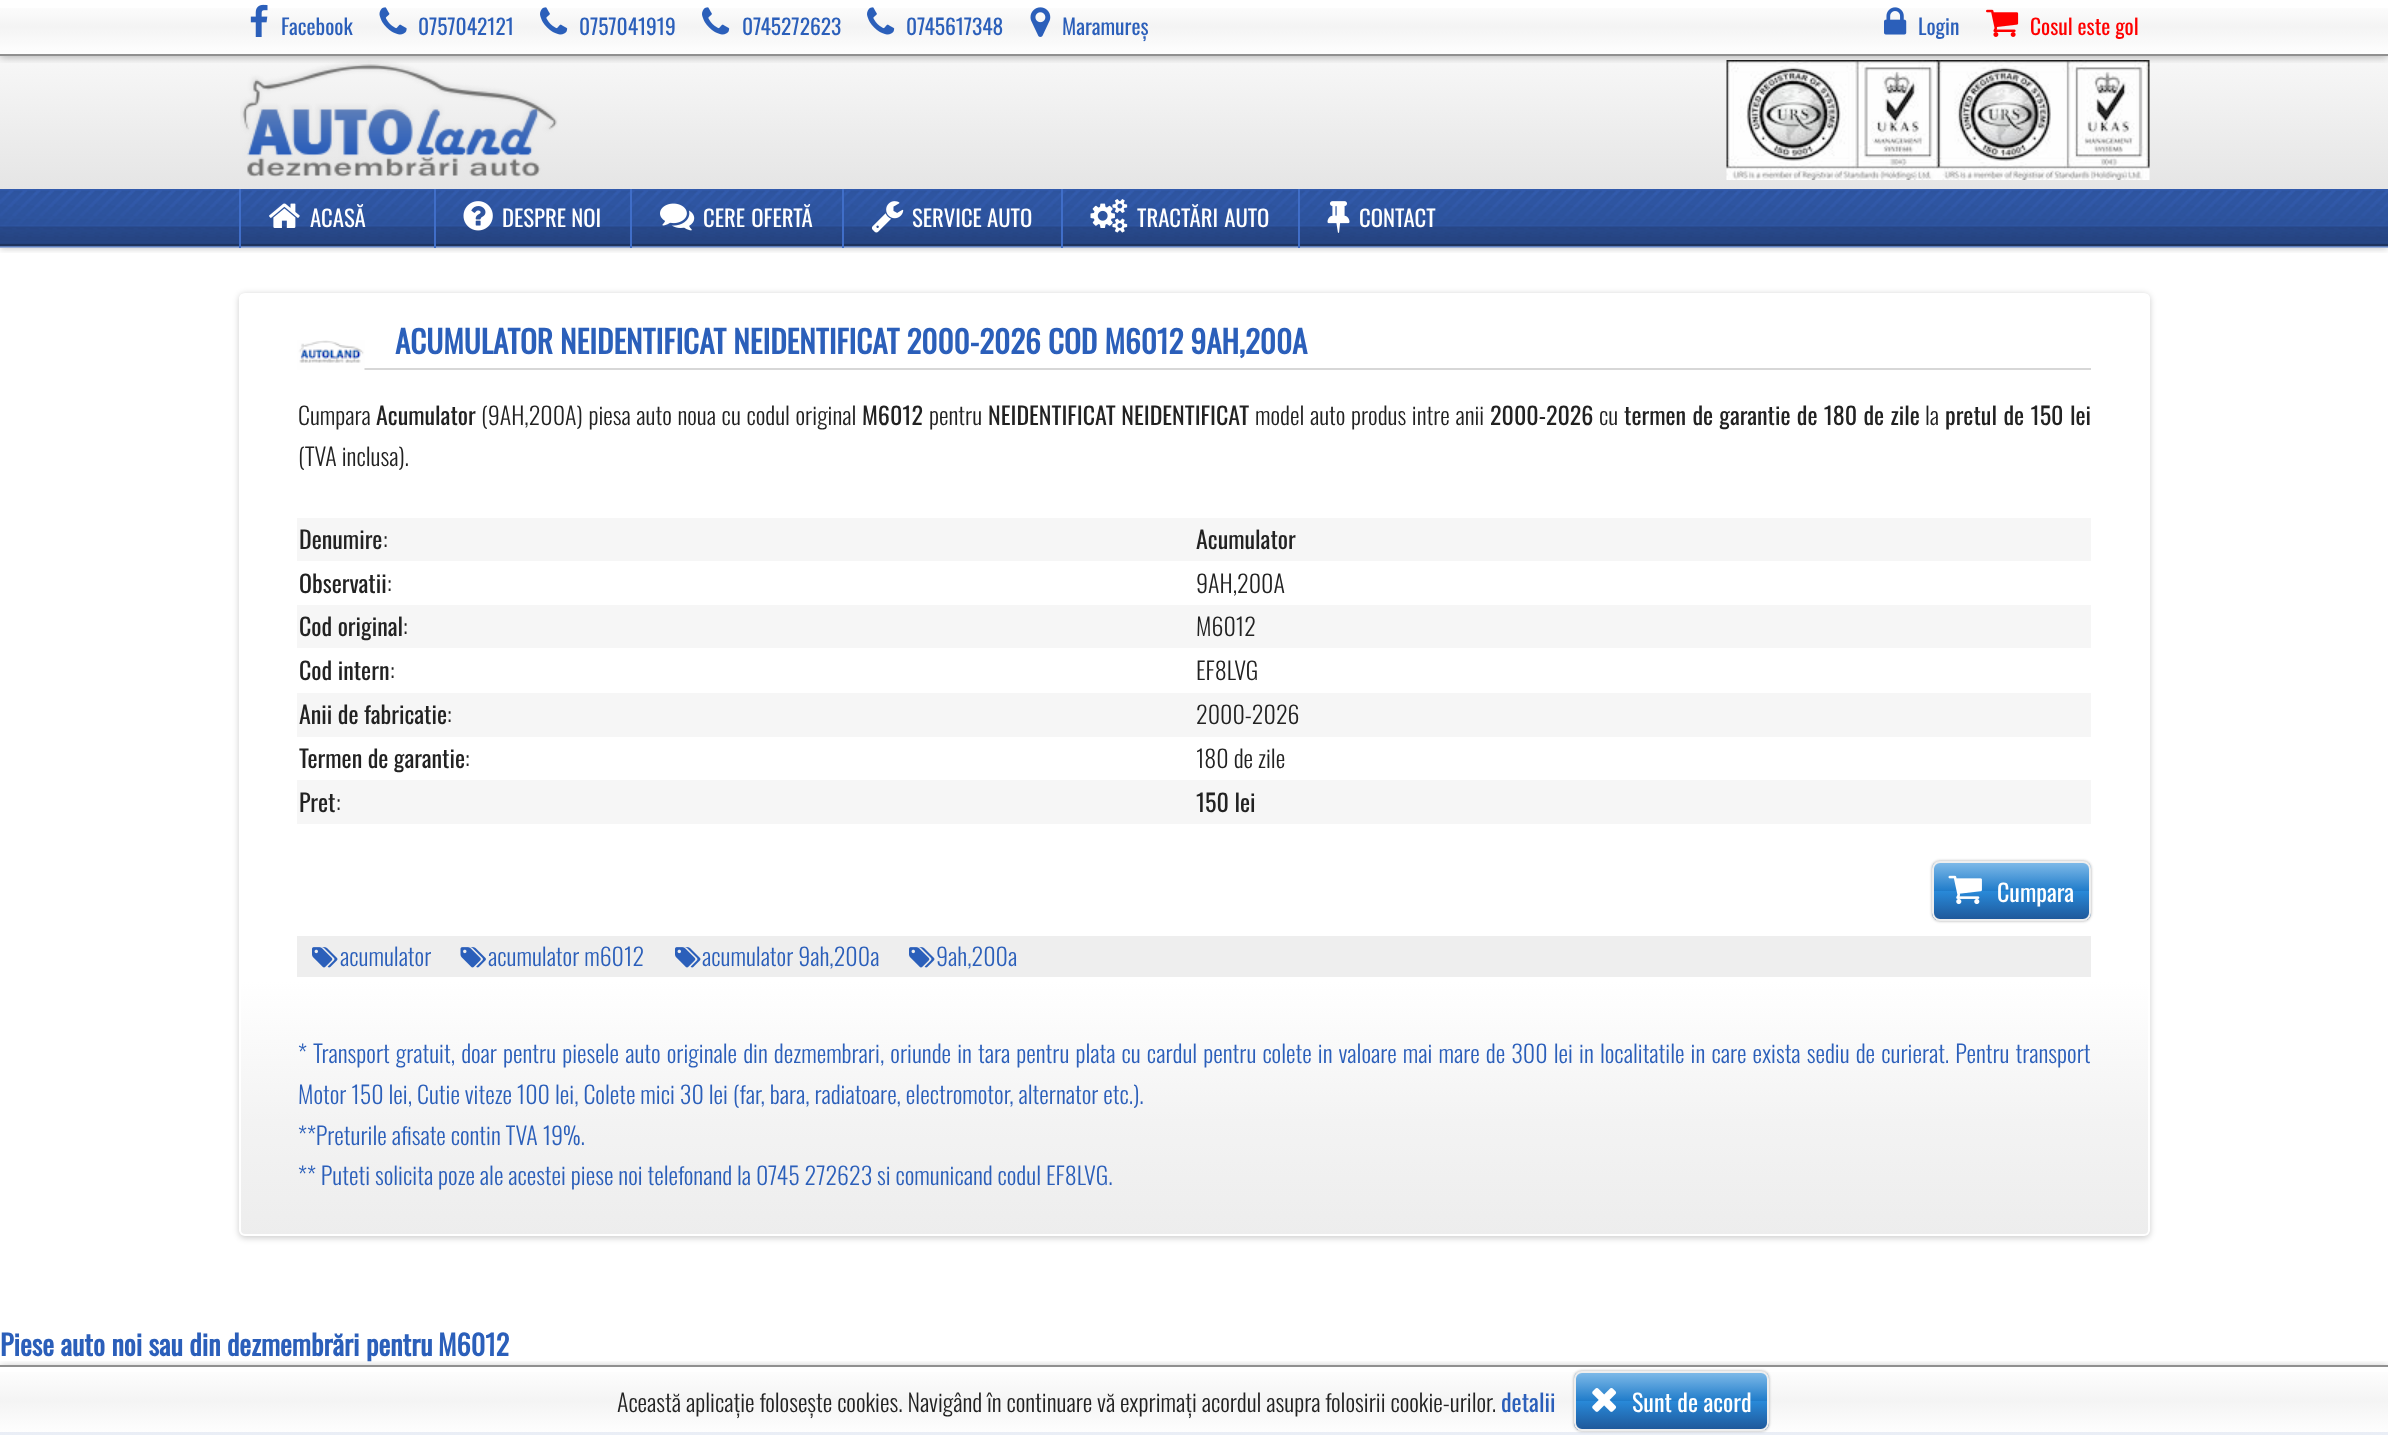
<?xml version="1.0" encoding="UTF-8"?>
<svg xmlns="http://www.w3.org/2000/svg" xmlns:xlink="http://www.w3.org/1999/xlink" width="2388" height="1435">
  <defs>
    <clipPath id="clip1"><rect x="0" y="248" width="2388" height="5" /></clipPath>
    <linearGradient id="g1" gradientUnits="userSpaceOnUse" x1="1194" y1="0" x2="1194" y2="248"><stop offset="0" stop-color="#dddddd" stop-opacity="0" /><stop offset="1" stop-color="#dddddd" /></linearGradient>
    <clipPath id="clip2"><rect x="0" y="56" width="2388" height="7" /></clipPath>
    <linearGradient id="g2" gradientUnits="userSpaceOnUse" x1="1194" y1="0" x2="1194" y2="54"><stop offset="0" stop-color="#ffffff" stop-opacity="0.9" /><stop offset="0.5" stop-color="#f3f3f3" stop-opacity="0.9" /><stop offset="1" stop-color="#ffffff" stop-opacity="0.9" /></linearGradient>
    <clipPath id="clip3"><rect x="239" y="293" width="1911" height="943" rx="6" /></clipPath>
    <linearGradient id="g3" gradientUnits="userSpaceOnUse" x1="1194" y1="294" x2="1194" y2="1235"><stop offset="0" stop-color="#ffffff" /><stop offset="0.73" stop-color="#ffffff" /><stop offset="0.88" stop-color="#f3f3f3" /><stop offset="1" stop-color="#ededed" /><stop offset="1" stop-color="#ffffff" /></linearGradient>
    <clipPath id="clip4"><rect x="1932" y="861" width="159" height="60" rx="8" /></clipPath>
    <linearGradient id="g4" gradientUnits="userSpaceOnUse" x1="2012" y1="863" x2="2012" y2="920"><stop offset="0" stop-color="#7db9e8" /><stop offset="0.49" stop-color="#207cca" /><stop offset="0.5" stop-color="#2989d8" /><stop offset="1" stop-color="#1e5799" /></linearGradient>
    <clipPath id="clip5"><rect x="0" y="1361" width="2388" height="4" /></clipPath>
    <linearGradient id="g5" gradientUnits="userSpaceOnUse" x1="1194" y1="1366" x2="1194" y2="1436"><stop offset="0" stop-color="#ffffff" stop-opacity="0.9" /><stop offset="0.5" stop-color="#f3f3f3" stop-opacity="0.9" /><stop offset="1" stop-color="#ffffff" stop-opacity="0.9" /></linearGradient>
    <clipPath id="clip6"><rect x="1574" y="1371" width="195" height="60" rx="8" /></clipPath>
    <linearGradient id="g6" gradientUnits="userSpaceOnUse" x1="1671" y1="1373" x2="1671" y2="1430"><stop offset="0" stop-color="#7db9e8" /><stop offset="0.49" stop-color="#207cca" /><stop offset="0.5" stop-color="#2989d8" /><stop offset="1" stop-color="#1e5799" /></linearGradient>
  </defs>
  <rect width="100%" height="100%" fill="#ffffff" />
  <g clip-path="url(#clip1)">
    <rect y="2" width="2388" height="247" fill="#000000" fill-opacity="0.2" filter="blur(3px)" />
  </g>
  <rect y="18" width="2388" height="171" fill="url(#g1)" />
  <image x="240" y="60" width="318" height="117" xlink:href="image7.png" />
  <image x="1726" y="60" width="424" height="120" xlink:href="image8.png" />
  <g clip-path="url(#clip2)">
    <rect y="2" width="2388" height="55" fill="#000000" fill-opacity="0.3" filter="blur(4px)" />
  </g>
  <rect y="8" width="2388" height="46" fill="url(#g2)" />
  <rect y="54" width="2388" height="2" fill="#909090" />
  <image x="250" y="4" width="18" height="33" xlink:href="image1.png" />
  <image x="379" y="7" width="28" height="28" xlink:href="image2.png" />
  <image x="540" y="7" width="28" height="28" xlink:href="image3.png" />
  <image x="702" y="7" width="28" height="28" xlink:href="image3.png" />
  <image x="867" y="7" width="28" height="28" xlink:href="image3.png" />
  <image x="1030" y="7" width="21" height="30" xlink:href="image4.png" />
  <image x="1884" y="7" width="23" height="28" xlink:href="image5.png" />
  <image x="1986" y="9" width="33" height="28" xlink:href="image6.png" />
  <rect y="247" width="2388" height="1" fill="#dddddd" />
  <image x="0" y="189" width="2388" height="59" xlink:href="image9.png" />
  <rect x="239" y="189" width="2" height="59" fill="#406ec8" />
  <image x="269" y="203" width="31" height="25" xlink:href="image10.png" />
  <rect x="434" y="189" width="2" height="59" fill="#406ec8" />
  <image x="463" y="201" width="30" height="30" xlink:href="image11.png" />
  <rect x="630" y="189" width="2" height="59" fill="#406ec8" />
  <image x="660" y="203" width="35" height="28" xlink:href="image12.png" />
  <rect x="842" y="189" width="2" height="59" fill="#406ec8" />
  <image x="871" y="201" width="33" height="32" xlink:href="image13.png" />
  <rect x="1061" y="189" width="2" height="59" fill="#406ec8" />
  <image x="1090" y="199" width="38" height="34" xlink:href="image14.png" />
  <rect x="1298" y="189" width="2" height="59" fill="#406ec8" />
  <image x="1327" y="201" width="23" height="32" xlink:href="image15.png" />
  <rect x="239" y="294" width="1911" height="944" rx="6" fill="#000000" fill-opacity="0.2" filter="blur(3px)" />
  <g clip-path="url(#clip3)">
    <rect x="239" y="294" width="1911" height="941" fill="url(#g3)" />
  </g>
  <rect x="240" y="294" width="1909" height="941" rx="5" fill="none" stroke="#ffffff" stroke-width="2" />
  <rect x="364" y="368" width="1727" height="2" fill="#d7d7d7" />
  <image x="297" y="340" width="68" height="30" xlink:href="image16.png" />
  <rect x="297" y="518" width="1794" height="43" fill="#f6f6f6" />
  <rect x="297" y="605" width="1794" height="43" fill="#f6f6f6" />
  <rect x="297" y="693" width="1794" height="44" fill="#f6f6f6" />
  <rect x="297" y="780" width="1794" height="44" fill="#f6f6f6" />
  <rect x="1932" y="861" width="159" height="60" rx="8" fill="#aaaaaa" filter="blur(1.5px)" />
  <g clip-path="url(#clip4)">
    <rect x="1932" y="863" width="159" height="57" fill="url(#g4)" />
  </g>
  <rect x="1933" y="862" width="157" height="58" rx="7" fill="none" stroke="#eeeeee" stroke-width="2" />
  <image x="1948" y="875" width="34" height="30" xlink:href="image17.png" />
  <rect x="297" y="936" width="1794" height="41" fill="#eeeeee" />
  <image x="312" y="947" width="26" height="21" xlink:href="image18.png" />
  <image x="460" y="947" width="26" height="21" xlink:href="image19.png" />
  <image x="675" y="947" width="26" height="21" xlink:href="image18.png" />
  <image x="909" y="947" width="26" height="21" xlink:href="image18.png" />
  <rect y="1432" width="2388" height="3" fill="#315aaa" />
  <g clip-path="url(#clip5)">
    <rect y="1367" width="2388" height="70" fill="#000000" fill-opacity="0.3" filter="blur(4px)" />
  </g>
  <rect y="1372" width="2388" height="63" fill="url(#g5)" />
  <rect y="1365" width="2388" height="2" fill="#909090" />
  <rect x="1574" y="1371" width="195" height="60" rx="8" fill="#aaaaaa" filter="blur(1.5px)" />
  <g clip-path="url(#clip6)">
    <rect x="1574" y="1373" width="195" height="57" fill="url(#g6)" />
  </g>
  <rect x="1575" y="1372" width="193" height="58" rx="7" fill="none" stroke="#eeeeee" stroke-width="2" />
  <image x="1592" y="1388" width="25" height="24" xlink:href="image20.png" />
  <text x="281" y="35" style="font-family: Oswald; font-size: 21.5px; fill: #2b5fba">Facebook</text>
  <text x="418" y="35" style="font-family: Oswald; font-size: 21.5px; fill: #2b5fba">0757042121</text>
  <text x="579" y="35" style="font-family: Oswald; font-size: 21.5px; fill: #2b5fba">0757041919</text>
  <text x="742" y="35" style="font-family: Oswald; font-size: 21.5px; fill: #2b5fba">0745272623</text>
  <text x="906" y="35" style="font-family: Oswald; font-size: 21.5px; fill: #2b5fba">0745617348</text>
  <text x="1062" y="35" style="font-family: Oswald; font-size: 21.5px; fill: #2b5fba">Maramureș</text>
  <text x="1918" y="35" style="font-family: Oswald; font-size: 21.5px; fill: #2b5fba">Login</text>
  <text x="2030" y="35" style="font-family: Oswald; font-size: 21.5px; fill: #ff0000">Cosul este gol</text>
  <text x="310" y="227" style="font-family: Oswald; font-size: 22.75px; fill: #ffffff">ACASĂ</text>
  <text x="502" y="227" style="font-family: Oswald; font-size: 22.75px; fill: #ffffff">DESPRE NOI</text>
  <text x="703" y="227" word-spacing="1" style="font-family: Oswald; font-size: 22.75px; fill: #ffffff">CERE OFERTĂ</text>
  <text x="912" y="227" style="font-family: Oswald; font-size: 22.75px; fill: #ffffff">SERVICE AUTO</text>
  <text x="1137" y="227" word-spacing="1" style="font-family: Oswald; font-size: 22.75px; fill: #ffffff">TRACTĂRI AUTO</text>
  <text x="1359" y="227" style="font-family: Oswald; font-size: 22.75px; fill: #ffffff">CONTACT</text>
  <text x="395" y="354" style="font-family: Oswald; font-size: 31.2px; font-weight: bold; fill: #2b5fba">ACUMULATOR NEIDENTIFICAT NEIDENTIFICAT 2000-2026 COD M6012 9AH,200A</text>
  <text x="298" y="425" style="font-family: Oswald; font-size: 24px; font-weight: 300; fill: #222222">Cumpara</text>
  <text x="376" y="425" style="font-family: Oswald; font-size: 24px; fill: #222222">Acumulator</text>
  <text x="481" y="425" word-spacing="0.75" style="font-family: Oswald; font-size: 24px; font-weight: 300; fill: #222222">(9AH,200A) piesa auto noua cu codul original</text>
  <text x="862" y="425" style="font-family: Oswald; font-size: 24px; fill: #222222">M6012</text>
  <text x="929" y="425" style="font-family: Oswald; font-size: 24px; font-weight: 300; fill: #222222">pentru</text>
  <text x="988" y="425" style="font-family: Oswald; font-size: 24px; fill: #222222">NEIDENTIFICAT NEIDENTIFICAT</text>
  <text x="1255" y="425" word-spacing="0.75" style="font-family: Oswald; font-size: 24px; font-weight: 300; fill: #222222">model auto produs intre anii</text>
  <text x="1490" y="425" style="font-family: Oswald; font-size: 24px; fill: #222222">2000-2026</text>
  <text x="1599" y="425" style="font-family: Oswald; font-size: 24px; font-weight: 300; fill: #222222">cu</text>
  <text x="1624" y="425" word-spacing="0.75" style="font-family: Oswald; font-size: 24px; fill: #222222">termen de garantie de 180 de zile</text>
  <text x="1925" y="425" style="font-family: Oswald; font-size: 24px; font-weight: 300; fill: #222222">la</text>
  <text x="1945" y="425" word-spacing="1" style="font-family: Oswald; font-size: 24px; fill: #222222">pretul de 150 lei</text>
  <text x="298" y="466" style="font-family: Oswald; font-size: 24px; font-weight: 300; fill: #222222">(TVA inclusa).</text>
  <text x="299" y="549" style="font-family: Oswald; font-size: 24px; fill: #222222">Denumire</text>
  <text x="383" y="549" style="font-family: Oswald; font-size: 24px; font-weight: 300; fill: #222222">:</text>
  <text x="1196" y="549" style="font-family: Oswald; font-size: 24px; fill: #222222">Acumulator</text>
  <text x="299" y="593" style="font-family: Oswald; font-size: 24px; fill: #222222">Observatii</text>
  <text x="387" y="593" style="font-family: Oswald; font-size: 24px; font-weight: 300; fill: #222222">:</text>
  <text x="1196" y="593" style="font-family: Oswald; font-size: 24px; font-weight: 300; fill: #222222">9AH,200A</text>
  <text x="299" y="636" style="font-family: Oswald; font-size: 24px; fill: #222222">Cod original</text>
  <text x="403" y="636" style="font-family: Oswald; font-size: 24px; font-weight: 300; fill: #222222">:</text>
  <text x="1196" y="636" style="font-family: Oswald; font-size: 24px; font-weight: 300; fill: #222222">M6012</text>
  <text x="299" y="680" style="font-family: Oswald; font-size: 24px; fill: #222222">Cod intern</text>
  <text x="390" y="680" style="font-family: Oswald; font-size: 24px; font-weight: 300; fill: #222222">:</text>
  <text x="1196" y="680" style="font-family: Oswald; font-size: 24px; font-weight: 300; fill: #222222">EF8LVG</text>
  <text x="299" y="724" style="font-family: Oswald; font-size: 24px; fill: #222222">Anii de fabricatie</text>
  <text x="447" y="724" style="font-family: Oswald; font-size: 24px; font-weight: 300; fill: #222222">:</text>
  <text x="1196" y="724" style="font-family: Oswald; font-size: 24px; font-weight: 300; fill: #222222">2000-2026</text>
  <text x="299" y="768" style="font-family: Oswald; font-size: 24px; fill: #222222">Termen de garantie</text>
  <text x="465" y="768" style="font-family: Oswald; font-size: 24px; font-weight: 300; fill: #222222">:</text>
  <text x="1196" y="768" style="font-family: Oswald; font-size: 24px; font-weight: 300; fill: #222222">180 de zile</text>
  <text x="299" y="812" style="font-family: Oswald; font-size: 24px; fill: #222222">Pret</text>
  <text x="336" y="812" style="font-family: Oswald; font-size: 24px; font-weight: 300; fill: #222222">:</text>
  <text x="1196" y="812" style="font-family: Oswald; font-size: 24px; fill: #222222">150 lei</text>
  <text x="1997" y="902" style="font-family: Oswald; font-size: 24px; fill: #ffffff">Cumpara</text>
  <text x="340" y="966" style="font-family: Oswald; font-size: 24px; font-weight: 300; fill: #2b5fba">acumulator</text>
  <text x="488" y="966" style="font-family: Oswald; font-size: 24px; font-weight: 300; fill: #2b5fba">acumulator m6012</text>
  <text x="702" y="966" style="font-family: Oswald; font-size: 24px; font-weight: 300; fill: #2b5fba">acumulator 9ah,200a</text>
  <text x="936" y="966" style="font-family: Oswald; font-size: 24px; font-weight: 300; fill: #2b5fba">9ah,200a</text>
  <text x="298" y="1063" word-spacing="1.2" style="font-family: Oswald; font-size: 24px; font-weight: 300; fill: #2b5fba">* Transport gratuit, doar pentru piesele auto originale din dezmembrari, oriunde in tara pentru plata cu cardul pentru colete in valoare mai mare de 300 lei in localitatile in care exista sediu de curierat. Pentru transport</text>
  <text x="298" y="1104" style="font-family: Oswald; font-size: 24px; font-weight: 300; fill: #2b5fba">Motor 150 lei, Cutie viteze 100 lei, Colete mici 30 lei (far, bara, radiatoare, electromotor, alternator etc.).</text>
  <text x="298" y="1145" style="font-family: Oswald; font-size: 24px; font-weight: 300; fill: #2b5fba">**Preturile afisate contin TVA 19%.</text>
  <text x="298" y="1185" style="font-family: Oswald; font-size: 24px; font-weight: 300; fill: #2b5fba">** Puteti solicita poze ale acestei piese noi telefonand la 0745 272623 si comunicand codul EF8LVG.</text>
  <text x="0" y="1356" style="font-family: Oswald; font-size: 28.1px; font-weight: bold; fill: #2b5fba">Piese auto noi sau din dezmembrări pentru</text>
  <text x="438" y="1356" style="font-family: Oswald; font-size: 28.1px; font-weight: bold; fill: #2b5fba">M6012</text>
  <text x="617" y="1412" style="font-family: Oswald; font-size: 24px; font-weight: 300; fill: #222222">Această aplicație folosește cookies. Navigând în continuare vă exprimați acordul asupra folosirii cookie-urilor.</text>
  <text x="1501" y="1412" style="font-family: Oswald; font-size: 24px; fill: #2b5fba">detalii</text>
  <text x="1632" y="1412" style="font-family: Oswald; font-size: 24px; fill: #ffffff">Sunt de acord</text>
</svg>
